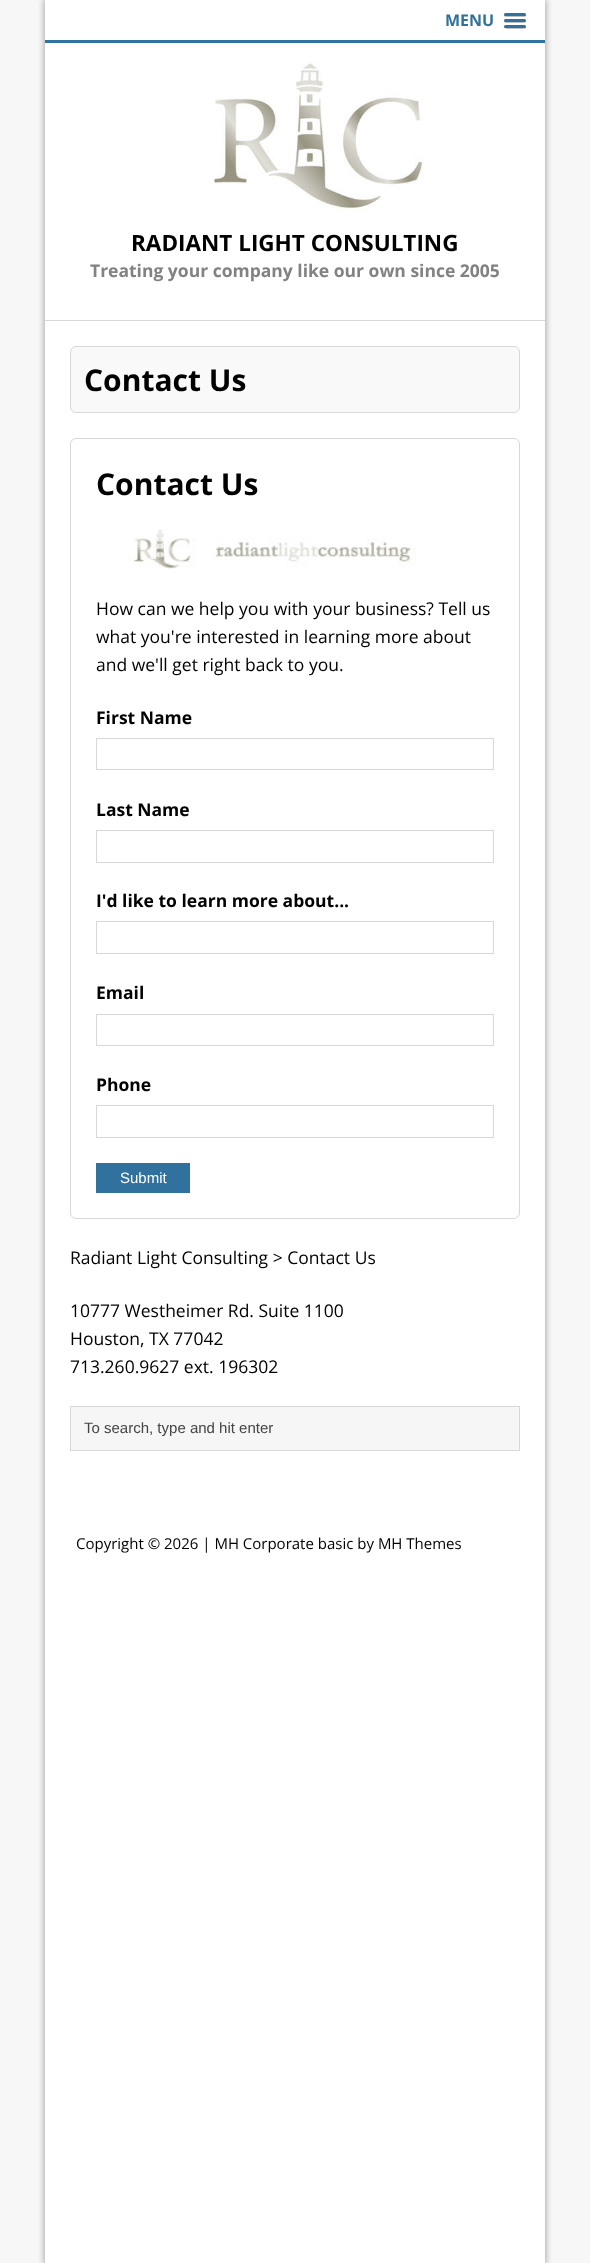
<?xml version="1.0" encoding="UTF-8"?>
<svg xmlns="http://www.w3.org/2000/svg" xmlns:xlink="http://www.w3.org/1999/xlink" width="590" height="2263">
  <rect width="100%" height="100%" fill="#f7f7f7" />
  <rect x="44" y="-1" width="502" height="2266" fill="#a8a8a8" filter="blur(3px)" />
  <rect x="45" width="500" height="2263" fill="#ffffff" />
  <rect x="45" y="40" width="500" height="3" fill="#30719d" />
  <path d="M 504 14.5 c -1.5 3 4 2.5 4.5 2.5 h 13 c 0.5 0 6 0.5 4.5 -2.5 c -1 0.5 -21 0.5 -22 0 z" fill="#bfbfbf" />
  <rect x="504" y="13" width="22" height="3" rx="1.5" fill="#30719d" />
  <path d="M 504 21 c -1 2.5 4 2 4.5 2 h 13 c 0.5 0 5.5 0.5 4.5 -2 c -1 0.5 -21 0.5 -22 0 z" fill="#bfbfbf" />
  <rect x="504" y="19" width="22" height="3" rx="1.5" fill="#30719d" />
  <path d="M 504 27 c -0.5 2.5 4 2 4.5 2 h 13 c 0.5 0 5 0.5 4.5 -2 c -1 1 -21 1 -22 0 z" fill="#bfbfbf" />
  <rect x="504" y="25" width="22" height="3" rx="1.5" fill="#30719d" />
  <rect x="45" y="320" width="500" height="1" fill="#d8d8d8" />
  <image x="212" y="61" width="213" height="150" xlink:href="image1.png" />
  <rect x="70.5" y="346.5" width="449" height="66" rx="5.5" fill="#f9f9f9" stroke="#d8d8d8" />
  <rect x="70.5" y="438.5" width="449" height="780" rx="5.5" fill="none" stroke="#d8d8d8" />
  <image x="133" y="529" width="283" height="40" xlink:href="image2.png" />
  <rect x="96.5" y="738.5" width="397" height="31" fill="none" stroke="#d7d8d8" />
  <rect x="96.5" y="830.5" width="397" height="32" fill="none" stroke="#d7d8d8" />
  <rect x="96.5" y="921.5" width="397" height="32" fill="none" stroke="#d7d8d8" />
  <rect x="96.5" y="1014.5" width="397" height="31" fill="none" stroke="#d7d8d8" />
  <rect x="96.5" y="1105.5" width="397" height="32" fill="none" stroke="#d7d8d8" />
  <rect x="96" y="1163" width="94" height="30" fill="#30719d" />
  <rect x="70.5" y="1406.5" width="449" height="44" fill="#f6f6f6" stroke="#d8d8d8" />
  <text x="445" y="26" style="font-family: Open Sans; font-size: 16px; font-weight: bold; fill: #30719d">MENU</text>
  <text x="131" y="251" style="font-family: Open Sans; font-size: 22.5px; font-weight: bold; fill: #000000">RADIANT LIGHT CONSULTING</text>
  <text x="90" y="277" style="font-family: Open Sans; font-size: 17.5px; font-weight: bold; fill: #828282">Treating your company like our own since 2005</text>
  <text x="84" y="391" style="font-family: Open Sans; font-size: 30px; font-weight: bold; fill: #000000">Contact Us</text>
  <text x="96" y="495" style="font-family: Open Sans; font-size: 30px; font-weight: bold; fill: #000000">Contact Us</text>
  <text x="96" y="615" style="font-family: Open Sans; font-size: 17.5px; fill: #000000">How can we help you with your business? Tell us</text>
  <text x="96" y="643" style="font-family: Open Sans; font-size: 17.5px; fill: #000000">what you're interested in learning more about</text>
  <text x="96" y="671" style="font-family: Open Sans; font-size: 17.5px; fill: #000000">and we'll get right back to you.</text>
  <text x="96" y="724" style="font-family: Open Sans; font-size: 17.5px; font-weight: bold; fill: #000000">First Name</text>
  <text x="96" y="816" style="font-family: Open Sans; font-size: 17.5px; font-weight: bold; fill: #000000">Last Name</text>
  <text x="96" y="907" style="font-family: Open Sans; font-size: 17.5px; font-weight: bold; fill: #000000">I'd like to learn more about...</text>
  <text x="96" y="999" style="font-family: Open Sans; font-size: 17.5px; font-weight: bold; fill: #000000">Email</text>
  <text x="96" y="1091" style="font-family: Open Sans; font-size: 17.5px; font-weight: bold; fill: #000000">Phone</text>
  <text x="120" y="1183" style="font-family: Liberation Sans; font-size: 15px; fill: #ffffff">Submit</text>
  <text x="70" y="1264" style="font-family: Open Sans; font-size: 17.5px; fill: #000000">Radiant Light Consulting &gt; Contact Us</text>
  <text x="70" y="1317" style="font-family: Open Sans; font-size: 17.5px; fill: #000000">10777 Westheimer Rd. Suite 1100</text>
  <text x="70" y="1345" style="font-family: Open Sans; font-size: 17.5px; fill: #000000">Houston, TX 77042</text>
  <text x="70" y="1373" style="font-family: Open Sans; font-size: 17.5px; fill: #000000">713.260.9627 ext. 196302</text>
  <text x="84" y="1433" style="font-family: Liberation Sans; font-size: 15px; fill: #444444">To search, type and hit enter</text>
  <text x="76" y="1549" style="font-family: Open Sans; font-size: 15px; fill: #000000">Copyright © 2026 | MH Corporate basic by MH Themes</text>
</svg>
